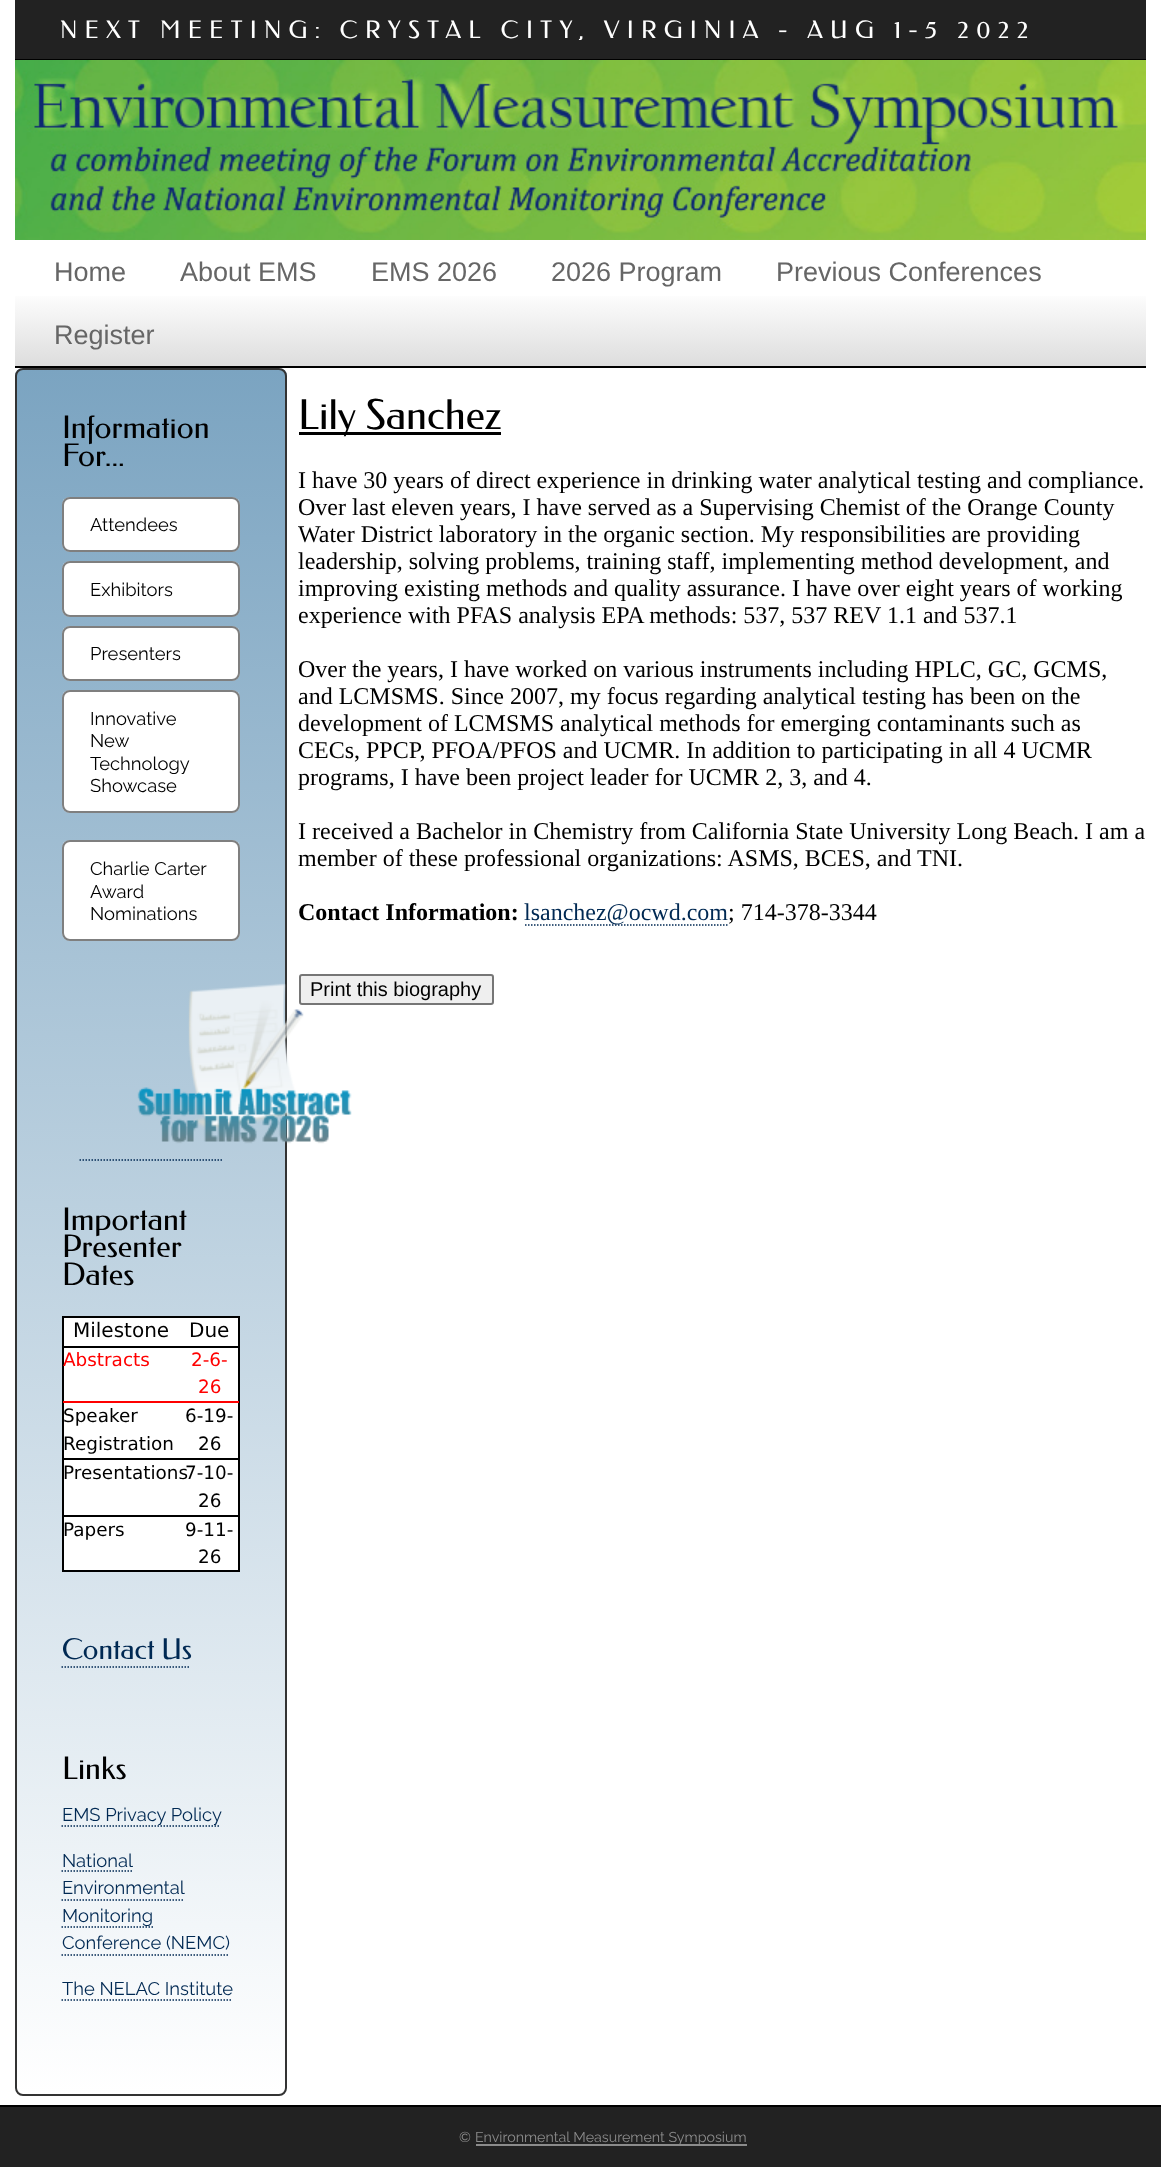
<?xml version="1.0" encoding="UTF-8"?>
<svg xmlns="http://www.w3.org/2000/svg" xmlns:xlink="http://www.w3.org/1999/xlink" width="1161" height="2167">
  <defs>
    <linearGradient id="g1" gradientUnits="userSpaceOnUse" x1="581" y1="240" x2="581" y2="366"><stop offset="0.4" stop-color="#ffffff" /><stop offset="1" stop-color="#dddddd" /></linearGradient>
    <clipPath id="clip1"><rect x="15" y="368" width="272" height="1728" rx="8" /></clipPath>
    <linearGradient id="g2" gradientUnits="userSpaceOnUse" x1="151" y1="369" x2="151" y2="2094"><stop offset="0" stop-color="#7ba4c1" /><stop offset="1" stop-color="#ffffff" /></linearGradient>
  </defs>
  <rect width="100%" height="100%" fill="#ffffff" />
  <rect x="15" width="1131" height="59" fill="#222222" />
  <rect x="15" y="59" width="1131" height="1" fill="#000000" />
  <image x="15" y="60" width="1131" height="180" xlink:href="image1.png" />
  <rect x="15" y="296" width="1131" height="70" fill="url(#g1)" />
  <rect x="15" y="366" width="1131" height="2" fill="#000000" />
  <g clip-path="url(#clip1)">
    <rect x="15" y="369" width="272" height="1725" fill="url(#g2)" />
  </g>
  <rect x="16" y="369" width="270" height="1726" rx="7" fill="none" stroke="#333333" stroke-width="2" />
  <rect x="62" y="497" width="178" height="55" rx="8" fill="#ffffff" />
  <rect x="63" y="498" width="176" height="53" rx="7" fill="none" stroke="#000000" stroke-opacity="0.5" stroke-width="2" />
  <rect x="62" y="561" width="178" height="56" rx="8" fill="#ffffff" />
  <rect x="63" y="562" width="176" height="54" rx="7" fill="none" stroke="#000000" stroke-opacity="0.5" stroke-width="2" />
  <rect x="62" y="626" width="178" height="55" rx="8" fill="#ffffff" />
  <rect x="63" y="627" width="176" height="53" rx="7" fill="none" stroke="#000000" stroke-opacity="0.5" stroke-width="2" />
  <rect x="62" y="690" width="178" height="123" rx="8" fill="#ffffff" />
  <rect x="63" y="691" width="176" height="121" rx="7" fill="none" stroke="#000000" stroke-opacity="0.5" stroke-width="2" />
  <rect x="62" y="840" width="178" height="101" rx="8" fill="#ffffff" />
  <rect x="63" y="841" width="176" height="99" rx="7" fill="none" stroke="#000000" stroke-opacity="0.5" stroke-width="2" />
  <path d="M 79.5 1160 h 142.5" fill="none" stroke="#002953" stroke-width="1.5" stroke-dasharray="1.5 1.5" />
  <image x="137" y="983" width="215" height="161" xlink:href="image2.png" />
  <rect x="63" y="1317" width="176" height="254" fill="#ffffff" stroke="#000000" stroke-width="2" />
  <rect x="63" y="1346" width="176" height="2" fill="#000000" />
  <rect x="63" y="1401" width="176" height="2" fill="#ff0000" />
  <rect x="63" y="1458" width="176" height="2" fill="#000000" />
  <rect x="63" y="1515" width="176" height="2" fill="#000000" />
  <path d="M 61.5 1667 h 129" fill="none" stroke="#002953" stroke-width="1.5" stroke-dasharray="1.5 1.5" />
  <path d="M 61.5 1826 h 159" fill="none" stroke="#002953" stroke-width="1.5" stroke-dasharray="1.5 1.5" />
  <path d="M 61.5 1871 h 70.5" fill="none" stroke="#002953" stroke-width="1.5" stroke-dasharray="1.5 1.5" />
  <path d="M 61.5 1900 h 123" fill="none" stroke="#002953" stroke-width="1.5" stroke-dasharray="1.5 1.5" />
  <path d="M 61.5 1927 h 91.5" fill="none" stroke="#002953" stroke-width="1.5" stroke-dasharray="1.5 1.5" />
  <path d="M 61.5 1955 h 168" fill="none" stroke="#002953" stroke-width="1.5" stroke-dasharray="1.5 1.5" />
  <path d="M 61.5 2000 h 171" fill="none" stroke="#002953" stroke-width="1.5" stroke-dasharray="1.5 1.5" />
  <rect x="299" y="432" width="202" height="3" fill="#000000" />
  <path d="M 525 925 h 204" fill="none" stroke="#002953" stroke-width="1.5" stroke-dasharray="1.5 1.5" />
  <rect x="300" y="975" width="193" height="29" rx="2" fill="#efefef" stroke="#767676" stroke-width="2" />
  <rect y="2107" width="1161" height="60" fill="#222222" />
  <rect y="2105" width="1161" height="2" fill="#000000" />
  <rect x="476" y="2144" width="271" height="2" fill="#8c8c8c" />
  <text x="60" y="38" style="font-family: Federo; font-size: 24px; letter-spacing: 7.2px; fill: #ffffff">NEXT MEETING: CRYSTAL CITY, VIRGINIA - AUG 1-5 2022</text>
  <text x="54" y="281" style="font-family: Liberation Sans; font-size: 27px; fill: #666666">Home</text>
  <text x="180" y="281" style="font-family: Liberation Sans; font-size: 27px; fill: #666666">About EMS</text>
  <text x="371" y="281" style="font-family: Liberation Sans; font-size: 27px; fill: #666666">EMS 2026</text>
  <text x="551" y="281" style="font-family: Liberation Sans; font-size: 27px; fill: #666666">2026 Program</text>
  <text x="776" y="281" style="font-family: Liberation Sans; font-size: 27px; fill: #666666">Previous Conferences</text>
  <text x="54" y="344" style="font-family: Liberation Sans; font-size: 27px; fill: #666666">Register</text>
  <text x="62" y="438" style="font-family: Federo; font-size: 31px; fill: #000000">Information</text>
  <text x="62" y="466" style="font-family: Federo; font-size: 31px; fill: #000000">For...</text>
  <text x="90" y="531" style="font-family: Raleway; font-size: 18.4px; font-weight: 100; fill: #000000">Attendees</text>
  <text x="90" y="596" style="font-family: Raleway; font-size: 18.4px; font-weight: 100; fill: #000000">Exhibitors</text>
  <text x="90" y="660" style="font-family: Raleway; font-size: 18.4px; font-weight: 100; fill: #000000">Presenters</text>
  <text x="90" y="725" style="font-family: Raleway; font-size: 18.4px; font-weight: 100; fill: #000000">Innovative</text>
  <text x="90" y="747" style="font-family: Raleway; font-size: 18.4px; font-weight: 100; fill: #000000">New</text>
  <text x="90" y="770" style="font-family: Raleway; font-size: 18.4px; font-weight: 100; fill: #000000">Technology</text>
  <text x="90" y="792" style="font-family: Raleway; font-size: 18.4px; font-weight: 100; fill: #000000">Showcase</text>
  <text x="90" y="875" style="font-family: Raleway; font-size: 18.4px; font-weight: 100; fill: #000000">Charlie Carter</text>
  <text x="90" y="898" style="font-family: Raleway; font-size: 18.4px; font-weight: 100; fill: #000000">Award</text>
  <text x="90" y="920" style="font-family: Raleway; font-size: 18.4px; font-weight: 100; fill: #000000">Nominations</text>
  <text x="62" y="1230" style="font-family: Federo; font-size: 31px; fill: #000000">Important</text>
  <text x="62" y="1257" style="font-family: Federo; font-size: 31px; fill: #000000">Presenter</text>
  <text x="62" y="1285" style="font-family: Federo; font-size: 31px; fill: #000000">Dates</text>
  <text x="73" y="1337" style="font-family: DejaVu Sans; font-size: 20px; fill: #000000">Milestone</text>
  <text x="189" y="1337" style="font-family: DejaVu Sans; font-size: 20px; fill: #000000">Due</text>
  <text x="63" y="1366" style="font-family: DejaVu Sans; font-size: 18.4px; fill: #ff0000">Abstracts</text>
  <text x="191" y="1366" style="font-family: DejaVu Sans; font-size: 18.4px; fill: #ff0000">2-6-</text>
  <text x="198" y="1393" style="font-family: DejaVu Sans; font-size: 18.4px; fill: #ff0000">26</text>
  <text x="63" y="1422" style="font-family: DejaVu Sans; font-size: 18.4px; fill: #000000">Speaker</text>
  <text x="63" y="1450" style="font-family: DejaVu Sans; font-size: 18.4px; fill: #000000">Registration</text>
  <text x="185" y="1422" style="font-family: DejaVu Sans; font-size: 18.4px; fill: #000000">6-19-</text>
  <text x="198" y="1450" style="font-family: DejaVu Sans; font-size: 18.4px; fill: #000000">26</text>
  <text x="63" y="1479" style="font-family: DejaVu Sans; font-size: 18.4px; fill: #000000">Presentations</text>
  <text x="185" y="1479" style="font-family: DejaVu Sans; font-size: 18.4px; fill: #000000">7-10-</text>
  <text x="198" y="1507" style="font-family: DejaVu Sans; font-size: 18.4px; fill: #000000">26</text>
  <text x="63" y="1536" style="font-family: DejaVu Sans; font-size: 18.4px; fill: #000000">Papers</text>
  <text x="185" y="1536" style="font-family: DejaVu Sans; font-size: 18.4px; fill: #000000">9-11-</text>
  <text x="198" y="1563" style="font-family: DejaVu Sans; font-size: 18.4px; fill: #000000">26</text>
  <text x="62" y="1659" style="font-family: Federo; font-size: 28.5px; fill: #002953">Contact Us</text>
  <text x="62" y="1779" style="font-family: Federo; font-size: 31px; fill: #000000">Links</text>
  <text x="62" y="1821" style="font-family: Raleway; font-size: 18.4px; font-weight: 100; fill: #002953">EMS Privacy Policy</text>
  <text x="62" y="1867" style="font-family: Raleway; font-size: 18.4px; font-weight: 100; fill: #002953">National</text>
  <text x="62" y="1894" style="font-family: Raleway; font-size: 18.4px; font-weight: 100; fill: #002953">Environmental</text>
  <text x="62" y="1922" style="font-family: Raleway; font-size: 18.4px; font-weight: 100; fill: #002953">Monitoring</text>
  <text x="62" y="1949" style="font-family: Raleway; font-size: 18.4px; font-weight: 100; fill: #002953">Conference (NEMC)</text>
  <text x="62" y="1995" style="font-family: Raleway; font-size: 18.4px; font-weight: 100; fill: #002953">The NELAC Institute</text>
  <text x="298" y="429" style="font-family: Federo; font-size: 41px; fill: #000000">Lily Sanchez</text>
  <text x="298" y="488" style="font-family: Liberation Serif; font-size: 24px; fill: #000000">I have 30 years of direct experience in drinking water analytical testing and compliance.</text>
  <text x="298" y="515" style="font-family: Liberation Serif; font-size: 24px; fill: #000000">Over last eleven years, I have served as a Supervising Chemist of the Orange County</text>
  <text x="298" y="542" style="font-family: Liberation Serif; font-size: 24px; fill: #000000">Water District laboratory in the organic section. My responsibilities are providing</text>
  <text x="298" y="569" style="font-family: Liberation Serif; font-size: 24px; fill: #000000">leadership, solving problems, training staff, implementing method development, and</text>
  <text x="298" y="596" style="font-family: Liberation Serif; font-size: 24px; fill: #000000">improving existing methods and quality assurance. I have over eight years of working</text>
  <text x="298" y="623" style="font-family: Liberation Serif; font-size: 24px; fill: #000000">experience with PFAS analysis EPA methods: 537, 537 REV 1.1 and 537.1</text>
  <text x="298" y="677" style="font-family: Liberation Serif; font-size: 24px; fill: #000000">Over the years, I have worked on various instruments including HPLC, GC, GCMS,</text>
  <text x="298" y="704" style="font-family: Liberation Serif; font-size: 24px; fill: #000000">and LCMSMS. Since 2007, my focus regarding analytical testing has been on the</text>
  <text x="298" y="731" style="font-family: Liberation Serif; font-size: 24px; fill: #000000">development of LCMSMS analytical methods for emerging contaminants such as</text>
  <text x="298" y="758" style="font-family: Liberation Serif; font-size: 24px; fill: #000000">CECs, PPCP, PFOA/PFOS and UCMR. In addition to participating in all 4 UCMR</text>
  <text x="298" y="785" style="font-family: Liberation Serif; font-size: 24px; fill: #000000">programs, I have been project leader for UCMR 2, 3, and 4.</text>
  <text x="298" y="839" style="font-family: Liberation Serif; font-size: 24px; fill: #000000">I received a Bachelor in Chemistry from California State University Long Beach. I am a</text>
  <text x="298" y="866" style="font-family: Liberation Serif; font-size: 24px; fill: #000000">member of these professional organizations: ASMS, BCES, and TNI.</text>
  <text x="298" y="920" style="font-family: Liberation Serif; font-size: 24px; font-weight: bold; fill: #000000">Contact Information:</text>
  <text x="524" y="920" style="font-family: Liberation Serif; font-size: 24px; fill: #002953">lsanchez@ocwd.com</text>
  <text x="728" y="920" style="font-family: Liberation Serif; font-size: 24px; fill: #000000">; 714-378-3344</text>
  <text x="310" y="996" style="font-family: Liberation Sans; font-size: 20px; fill: #000000">Print this biography</text>
  <text x="459" y="2142" style="font-family: Raleway; font-size: 14.25px; font-weight: 100; fill: #8c8c8c">©</text>
  <text x="475" y="2142" style="font-family: Raleway; font-size: 14.25px; font-weight: 100; fill: #8c8c8c">Environmental Measurement Symposium</text>
</svg>
